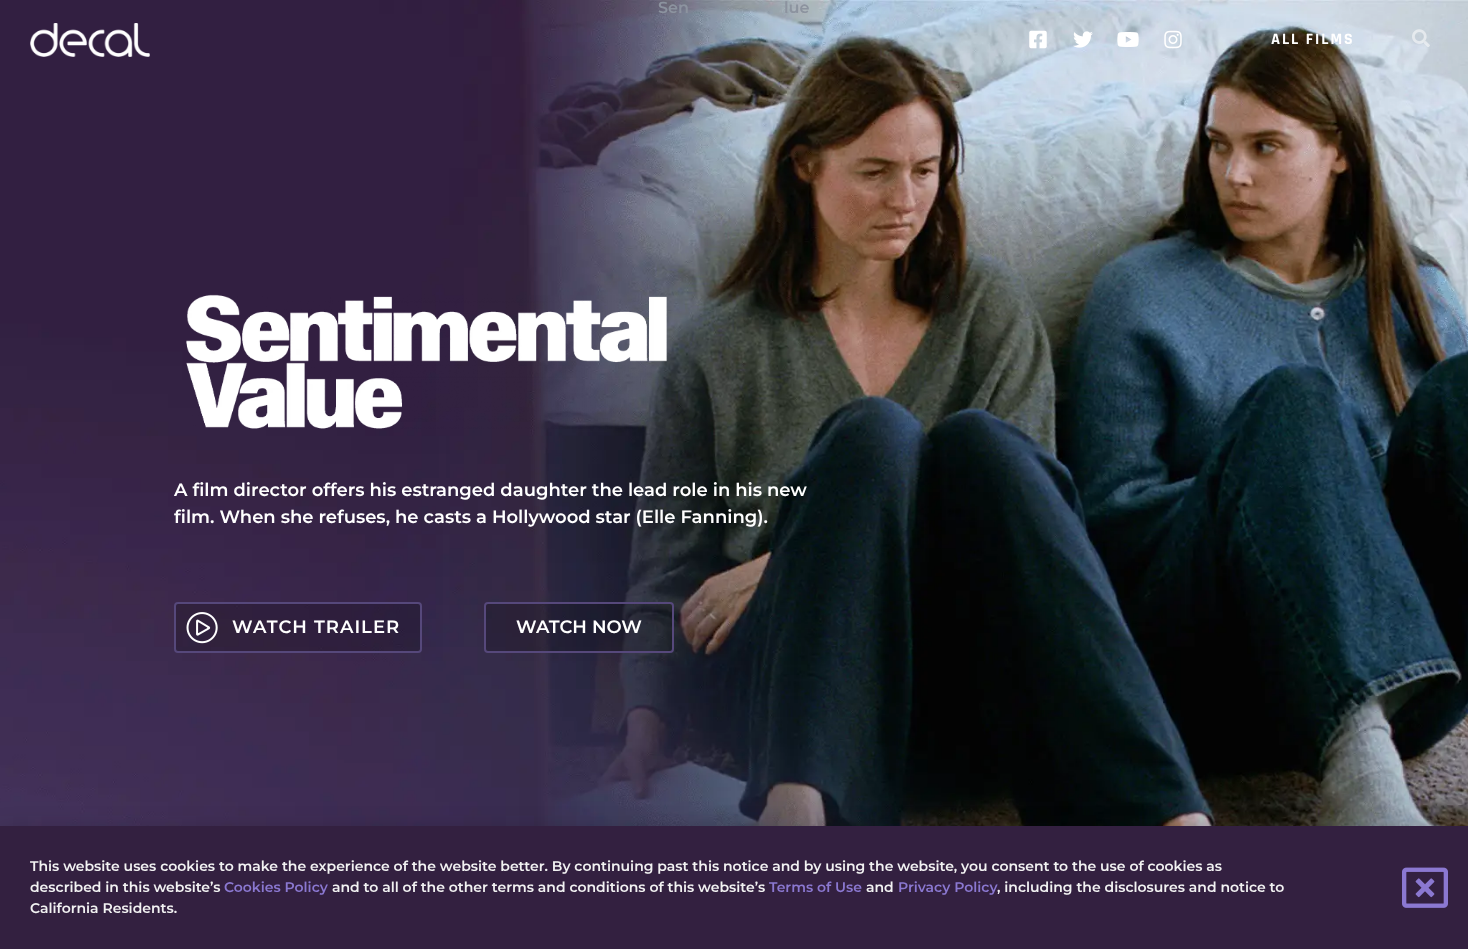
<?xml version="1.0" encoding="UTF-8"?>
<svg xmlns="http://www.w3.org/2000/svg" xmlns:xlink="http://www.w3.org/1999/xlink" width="1468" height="949">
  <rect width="100%" height="100%" fill="#ffffff" />
  <image x="0" y="0" width="1468" height="826" xlink:href="image1.png" />
  <image x="186" y="294" width="481" height="135" xlink:href="image2.png" />
  <rect x="175" y="603" width="246" height="49" rx="3" fill="#000000" fill-opacity="0.19" stroke="#56487b" stroke-width="2" />
  <image x="186" y="612" width="32" height="32" xlink:href="image3.png" />
  <rect x="485" y="603" width="188" height="49" rx="3" fill="#000000" fill-opacity="0.19" stroke="#56487b" stroke-width="2" />
  <image x="30" y="23" width="120" height="34" xlink:href="image4.png" />
  <image x="1029" y="30" width="18" height="19" xlink:href="image5.png" />
  <image x="1073" y="31" width="20" height="17" xlink:href="image6.png" />
  <image x="1117" y="32" width="22" height="15" xlink:href="image7.png" />
  <image x="1164" y="30" width="18" height="19" xlink:href="image8.png" />
  <image x="1412" y="29" width="18" height="18" xlink:href="image9.png" />
  <rect x="-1" y="831" width="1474" height="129" fill="#000000" fill-opacity="0.2" filter="blur(11.5px)" />
  <rect y="826" width="1468" height="123" fill="#332040" />
  <image x="1402" y="867" width="46" height="41" xlink:href="image10.png" />
  <text x="658" y="13" style="font-family: Montserrat; font-size: 16px; font-weight: 600; fill: #8c939f">Sen</text>
  <text x="784" y="13" style="font-family: Montserrat; font-size: 16px; font-weight: 600; fill: #8c939f">lue</text>
  <text x="174" y="496" style="font-family: Montserrat; font-size: 18px; font-weight: 600; fill: #ffffff">A film director offers his estranged daughter the lead role in his new</text>
  <text x="174" y="523" style="font-family: Montserrat; font-size: 18px; font-weight: 600; fill: #ffffff">film. When she refuses, he casts a Hollywood star (Elle Fanning).</text>
  <text x="232" y="633" style="font-family: Montserrat; font-size: 18px; font-weight: 600; letter-spacing: 1px; fill: #ffffff">WATCH TRAILER</text>
  <text x="516" y="633" style="font-family: Montserrat; font-size: 18px; font-weight: 600; fill: #ffffff">WATCH NOW</text>
  <text x="1271" y="44" style="font-family: Rajdhani; font-size: 16px; font-weight: bold; letter-spacing: 2px; fill: #ffffff">ALL FILMS</text>
  <text x="30" y="871" style="font-family: Montserrat; font-size: 14px; font-weight: 600; fill: #f2f2f2">This website uses cookies to make the experience of the website better. By continuing past this notice and by using the website, you consent to the use of cookies as</text>
  <text x="30" y="892" style="font-family: Montserrat; font-size: 14px; font-weight: 600; fill: #f2f2f2">described in this website’s</text>
  <text x="224" y="892" style="font-family: Montserrat; font-size: 14px; font-weight: 600; fill: #8b78d1">Cookies Policy</text>
  <text x="332" y="892" style="font-family: Montserrat; font-size: 14px; font-weight: 600; fill: #f2f2f2">and to all of the other terms and conditions of this website’s</text>
  <text x="769" y="892" style="font-family: Montserrat; font-size: 14px; font-weight: 600; fill: #8b78d1">Terms of Use</text>
  <text x="866" y="892" style="font-family: Montserrat; font-size: 14px; font-weight: 600; fill: #f2f2f2">and</text>
  <text x="898" y="892" style="font-family: Montserrat; font-size: 14px; font-weight: 600; fill: #8b78d1">Privacy Policy</text>
  <text x="997" y="892" style="font-family: Montserrat; font-size: 14px; font-weight: 600; fill: #f2f2f2">, including the disclosures and notice to</text>
  <text x="30" y="913" style="font-family: Montserrat; font-size: 14px; font-weight: 600; fill: #f2f2f2">California Residents.</text>
</svg>
